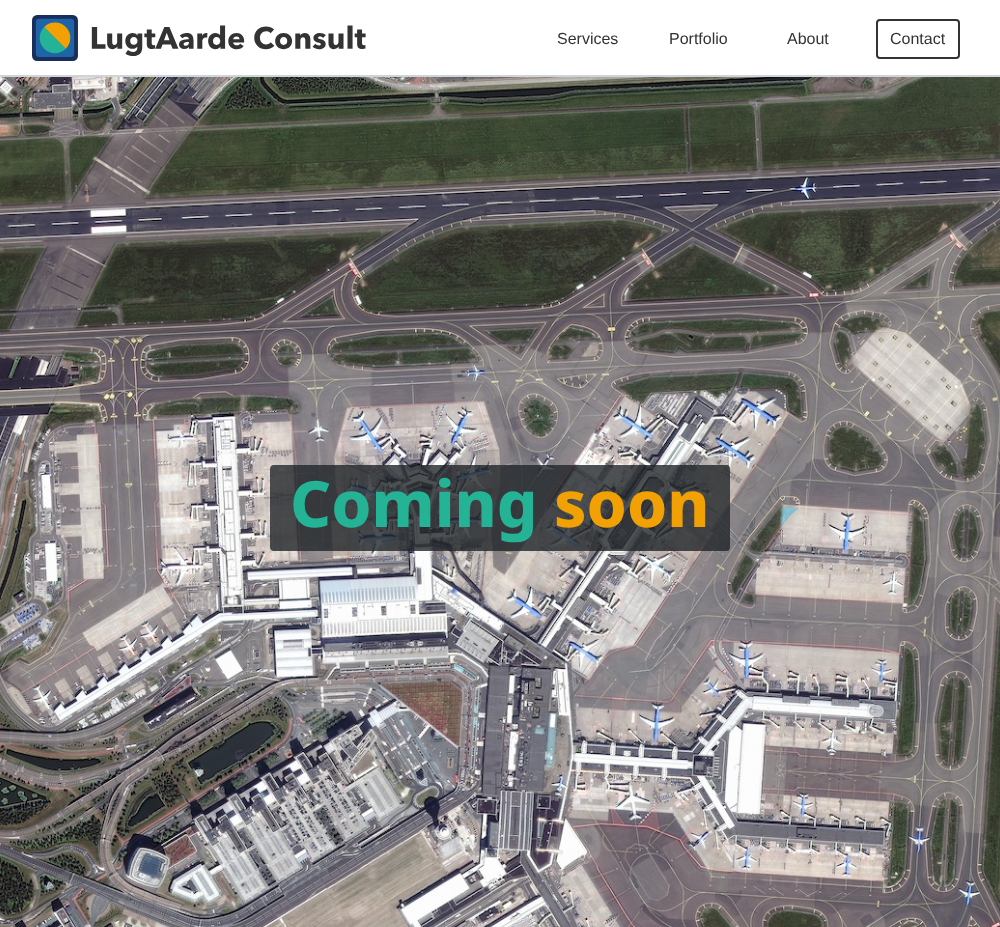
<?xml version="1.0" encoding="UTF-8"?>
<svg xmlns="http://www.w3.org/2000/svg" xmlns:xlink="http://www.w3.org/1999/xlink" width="1000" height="927">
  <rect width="100%" height="100%" fill="#ffffff" />
  <rect y="75" width="1000" height="2" fill="#ced4da" />
  <image x="32" y="15" width="334" height="46" xlink:href="image1.png" />
  <rect x="877" y="20" width="82" height="38" rx="3" fill="none" stroke="#333333" stroke-width="2" />
  <image x="0" y="77" width="1000" height="850" xlink:href="image2.png" />
  <rect x="270" y="465" width="460" height="86" rx="4" fill="#212529" fill-opacity="0.8" />
  <text x="557" y="44" style="font-family: Liberation Sans; font-size: 16px; fill: #333333">Services</text>
  <text x="669" y="44" style="font-family: Liberation Sans; font-size: 16px; fill: #333333">Portfolio</text>
  <text x="787" y="44" style="font-family: Liberation Sans; font-size: 16px; fill: #333333">About</text>
  <text x="890" y="44" style="font-family: Liberation Sans; font-size: 16px; fill: #333333">Contact</text>
  <text x="290" y="527" style="font-family: Noto Sans; font-size: 64px; font-weight: 800; fill: #25b396">Coming</text>
  <text x="554" y="527" style="font-family: Noto Sans; font-size: 64px; font-weight: 800; fill: #f1a104">soon</text>
</svg>
